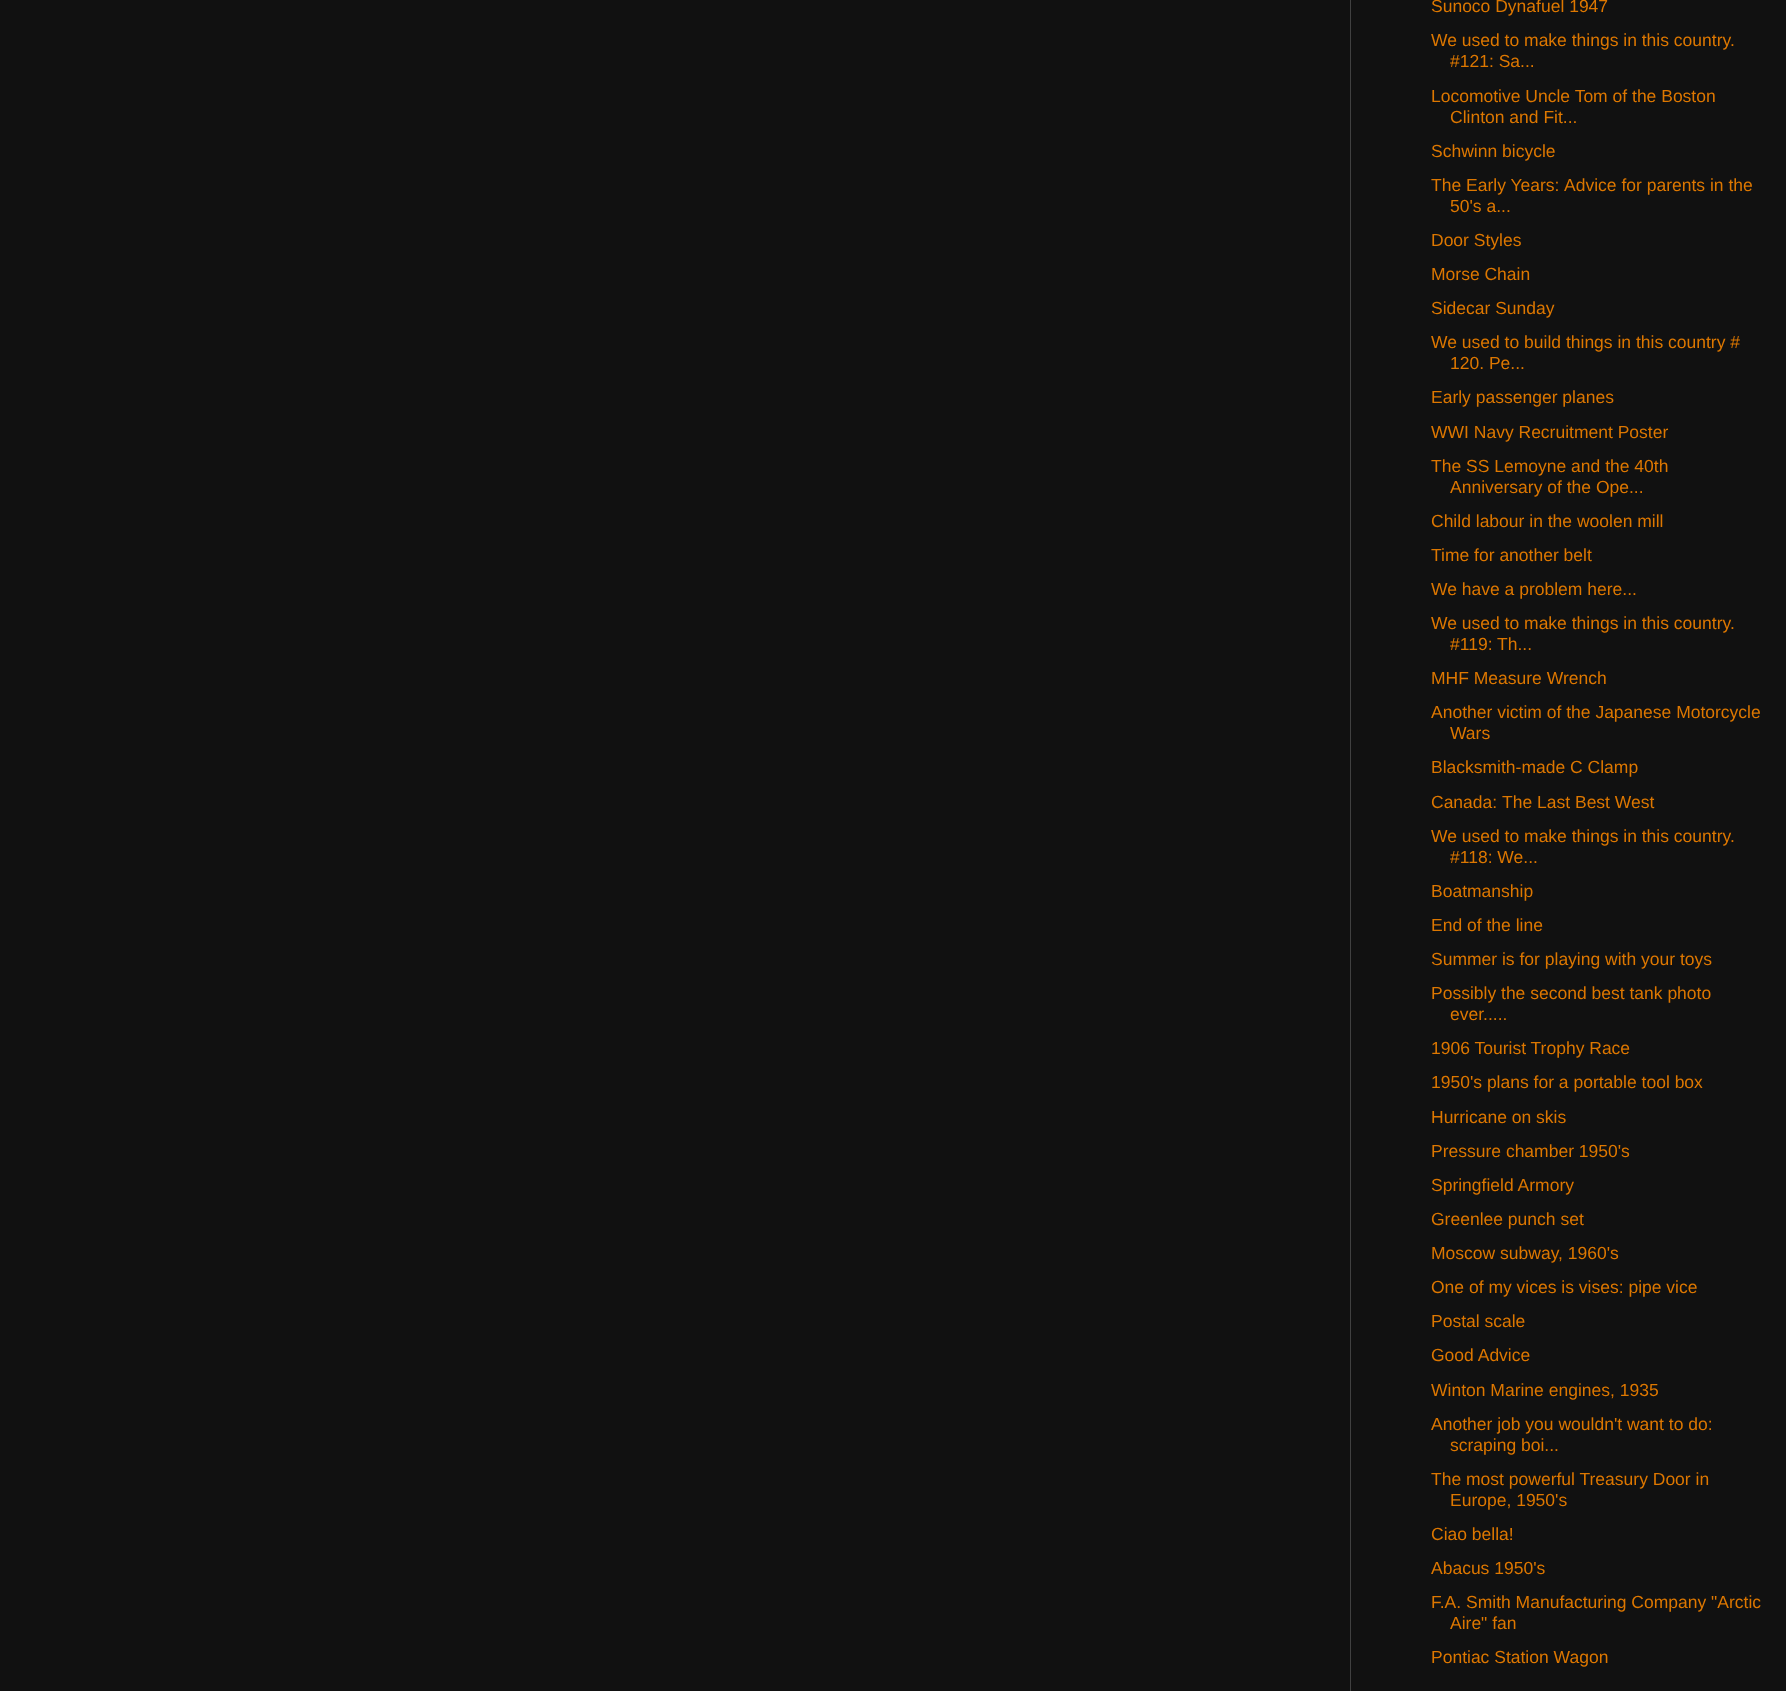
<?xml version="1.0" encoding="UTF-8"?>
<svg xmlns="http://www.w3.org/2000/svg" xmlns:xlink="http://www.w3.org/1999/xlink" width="1786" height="1691">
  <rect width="100%" height="100%" fill="#111111" />
  <rect x="1350" width="1" height="1691" fill="#404040" />
  <text x="1431" y="12" style="font-family: Liberation Sans; font-size: 17.5px; fill: #dd7700">Sunoco Dynafuel 1947</text>
  <text x="1431" y="46" style="font-family: Liberation Sans; font-size: 17.5px; fill: #dd7700">We used to make things in this country.</text>
  <text x="1450" y="67" style="font-family: Liberation Sans; font-size: 17.5px; fill: #dd7700">#121: Sa...</text>
  <text x="1431" y="102" style="font-family: Liberation Sans; font-size: 17.5px; fill: #dd7700">Locomotive Uncle Tom of the Boston</text>
  <text x="1450" y="123" style="font-family: Liberation Sans; font-size: 17.5px; fill: #dd7700">Clinton and Fit...</text>
  <text x="1431" y="157" style="font-family: Liberation Sans; font-size: 17.5px; fill: #dd7700">Schwinn bicycle</text>
  <text x="1431" y="191" style="font-family: Liberation Sans; font-size: 17.5px; fill: #dd7700">The Early Years:</text>
  <text x="1564" y="191" style="font-family: Liberation Sans; font-size: 17.5px; fill: #dd7700">Advice for parents in the</text>
  <text x="1450" y="212" style="font-family: Liberation Sans; font-size: 17.5px; fill: #dd7700">50's a...</text>
  <text x="1431" y="246" style="font-family: Liberation Sans; font-size: 17.5px; fill: #dd7700">Door Styles</text>
  <text x="1431" y="280" style="font-family: Liberation Sans; font-size: 17.5px; fill: #dd7700">Morse Chain</text>
  <text x="1431" y="314" style="font-family: Liberation Sans; font-size: 17.5px; fill: #dd7700">Sidecar Sunday</text>
  <text x="1431" y="348" style="font-family: Liberation Sans; font-size: 17.5px; fill: #dd7700">We used to build things in this country #</text>
  <text x="1450" y="369" style="font-family: Liberation Sans; font-size: 17.5px; fill: #dd7700">120. Pe...</text>
  <text x="1431" y="403" style="font-family: Liberation Sans; font-size: 17.5px; fill: #dd7700">Early passenger planes</text>
  <text x="1431" y="438" style="font-family: Liberation Sans; font-size: 17.5px; fill: #dd7700">WWI Navy Recruitment Poster</text>
  <text x="1431" y="472" style="font-family: Liberation Sans; font-size: 17.5px; fill: #dd7700">The SS Lemoyne and the 40th</text>
  <text x="1450" y="493" style="font-family: Liberation Sans; font-size: 17.5px; fill: #dd7700">Anniversary of the Ope...</text>
  <text x="1431" y="527" style="font-family: Liberation Sans; font-size: 17.5px; fill: #dd7700">Child labour in the woolen mill</text>
  <text x="1431" y="561" style="font-family: Liberation Sans; font-size: 17.5px; fill: #dd7700">Time for another belt</text>
  <text x="1431" y="595" style="font-family: Liberation Sans; font-size: 17.5px; fill: #dd7700">We have a problem here...</text>
  <text x="1431" y="629" style="font-family: Liberation Sans; font-size: 17.5px; fill: #dd7700">We used to make things in this country.</text>
  <text x="1450" y="650" style="font-family: Liberation Sans; font-size: 17.5px; fill: #dd7700">#119:</text>
  <text x="1497" y="650" style="font-family: Liberation Sans; font-size: 17.5px; fill: #dd7700">Th...</text>
  <text x="1431" y="684" style="font-family: Liberation Sans; font-size: 17.5px; fill: #dd7700">MHF Measure Wrench</text>
  <text x="1431" y="718" style="font-family: Liberation Sans; font-size: 17.5px; fill: #dd7700">Another victim of the Japanese Motorcycle</text>
  <text x="1450" y="739" style="font-family: Liberation Sans; font-size: 17.5px; fill: #dd7700">Wars</text>
  <text x="1431" y="773" style="font-family: Liberation Sans; font-size: 17.5px; fill: #dd7700">Blacksmith-made C Clamp</text>
  <text x="1431" y="808" style="font-family: Liberation Sans; font-size: 17.5px; fill: #dd7700">Canada:</text>
  <text x="1502" y="808" style="font-family: Liberation Sans; font-size: 17.5px; fill: #dd7700">The Last Best West</text>
  <text x="1431" y="842" style="font-family: Liberation Sans; font-size: 17.5px; fill: #dd7700">We used to make things in this country.</text>
  <text x="1450" y="863" style="font-family: Liberation Sans; font-size: 17.5px; fill: #dd7700">#118: We...</text>
  <text x="1431" y="897" style="font-family: Liberation Sans; font-size: 17.5px; fill: #dd7700">Boatmanship</text>
  <text x="1431" y="931" style="font-family: Liberation Sans; font-size: 17.5px; fill: #dd7700">End of the line</text>
  <text x="1431" y="965" style="font-family: Liberation Sans; font-size: 17.5px; fill: #dd7700">Summer is for playing with your toys</text>
  <text x="1431" y="999" style="font-family: Liberation Sans; font-size: 17.5px; fill: #dd7700">Possibly the second best tank photo</text>
  <text x="1450" y="1020" style="font-family: Liberation Sans; font-size: 17.5px; fill: #dd7700">ever.....</text>
  <text x="1431" y="1054" style="font-family: Liberation Sans; font-size: 17.5px; fill: #dd7700">1906 Tourist Trophy Race</text>
  <text x="1431" y="1088" style="font-family: Liberation Sans; font-size: 17.5px; fill: #dd7700">1950's plans for a portable tool box</text>
  <text x="1431" y="1123" style="font-family: Liberation Sans; font-size: 17.5px; fill: #dd7700">Hurricane on skis</text>
  <text x="1431" y="1157" style="font-family: Liberation Sans; font-size: 17.5px; fill: #dd7700">Pressure chamber 1950's</text>
  <text x="1431" y="1191" style="font-family: Liberation Sans; font-size: 17.5px; fill: #dd7700">Springfield Armory</text>
  <text x="1431" y="1225" style="font-family: Liberation Sans; font-size: 17.5px; fill: #dd7700">Greenlee punch set</text>
  <text x="1431" y="1259" style="font-family: Liberation Sans; font-size: 17.5px; fill: #dd7700">Moscow subway, 1960's</text>
  <text x="1431" y="1293" style="font-family: Liberation Sans; font-size: 17.5px; fill: #dd7700">One of my vices is vises: pipe vice</text>
  <text x="1431" y="1327" style="font-family: Liberation Sans; font-size: 17.5px; fill: #dd7700">Postal scale</text>
  <text x="1431" y="1361" style="font-family: Liberation Sans; font-size: 17.5px; fill: #dd7700">Good Advice</text>
  <text x="1431" y="1396" style="font-family: Liberation Sans; font-size: 17.5px; fill: #dd7700">Winton Marine engines, 1935</text>
  <text x="1431" y="1430" style="font-family: Liberation Sans; font-size: 17.5px; fill: #dd7700">Another job you wouldn't want to do:</text>
  <text x="1450" y="1451" style="font-family: Liberation Sans; font-size: 17.5px; fill: #dd7700">scraping boi...</text>
  <text x="1431" y="1485" style="font-family: Liberation Sans; font-size: 17.5px; fill: #dd7700">The most powerful Treasury Door in</text>
  <text x="1450" y="1506" style="font-family: Liberation Sans; font-size: 17.5px; fill: #dd7700">Europe, 1950's</text>
  <text x="1431" y="1540" style="font-family: Liberation Sans; font-size: 17.5px; fill: #dd7700">Ciao bella!</text>
  <text x="1431" y="1574" style="font-family: Liberation Sans; font-size: 17.5px; fill: #dd7700">Abacus 1950's</text>
  <text x="1431" y="1608" style="font-family: Liberation Sans; font-size: 17.5px; fill: #dd7700">F.A. Smith Manufacturing Company "Arctic</text>
  <text x="1450" y="1629" style="font-family: Liberation Sans; font-size: 17.5px; fill: #dd7700">Aire" fan</text>
  <text x="1431" y="1663" style="font-family: Liberation Sans; font-size: 17.5px; fill: #dd7700">Pontiac Station Wagon</text>
</svg>
